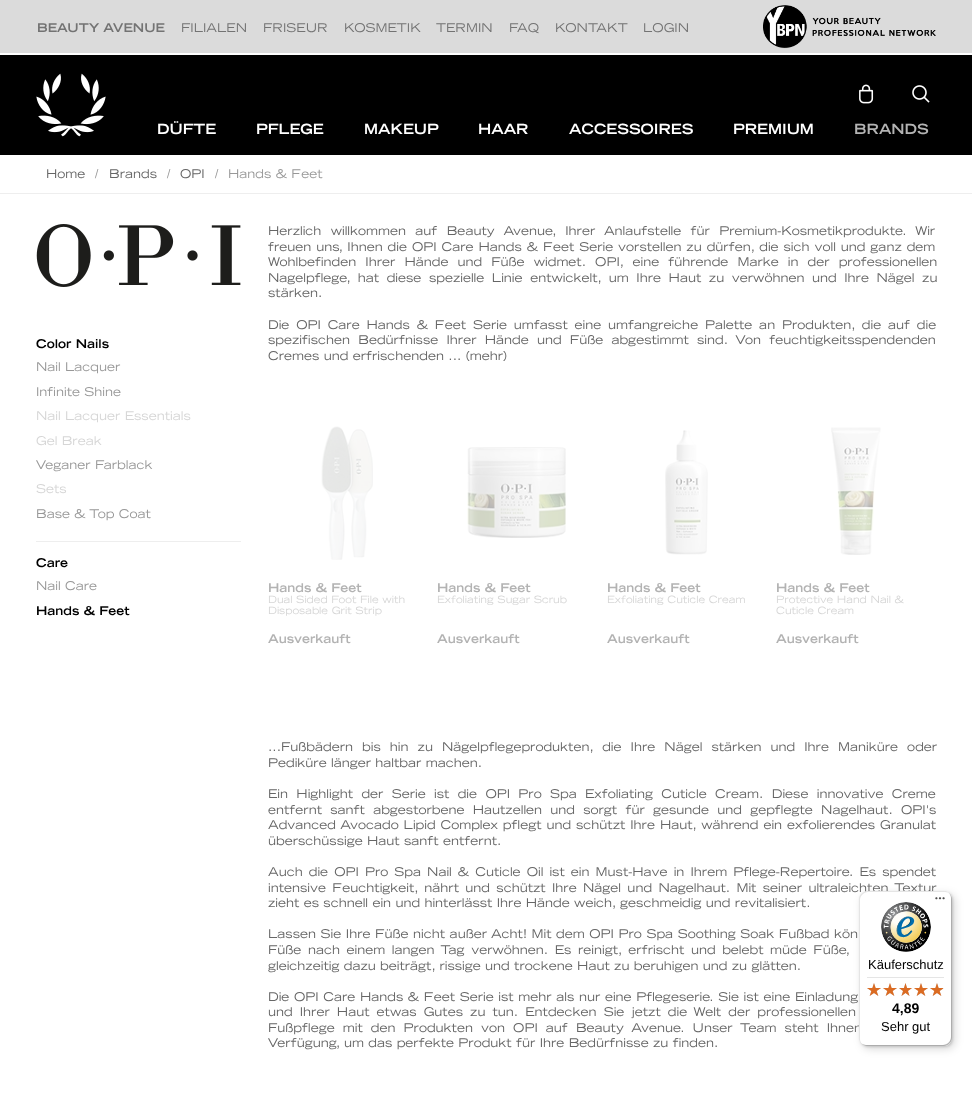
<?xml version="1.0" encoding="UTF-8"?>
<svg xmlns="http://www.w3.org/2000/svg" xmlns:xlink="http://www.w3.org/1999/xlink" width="972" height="1100">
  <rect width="100%" height="100%" fill="#ffffff" />
  <rect width="972" height="53" fill="#dbdbdb" />
  <image x="763" y="5" width="173" height="44" xlink:href="image1.png" />
  <rect y="55" width="972" height="100" fill="#000000" />
  <image x="36" y="73" width="70" height="64" xlink:href="image2.png" />
  <image x="859" y="84" width="15" height="20" xlink:href="image3.png" />
  <image x="912" y="85" width="18" height="18" xlink:href="image4.png" />
  <rect y="193" width="972" height="1" fill="#eeeeee" />
  <image x="36" y="224" width="205" height="63" xlink:href="image5.png" />
  <rect x="36" y="541" width="205" height="1" fill="#eeeeee" />
  <image x="321" y="426" width="52" height="134" xlink:href="image6.png" />
  <image x="467" y="447" width="99" height="91" xlink:href="image7.png" />
  <image x="665" y="430" width="43" height="125" xlink:href="image8.png" />
  <image x="831" y="427" width="50" height="128" xlink:href="image9.png" />
  <rect x="862" y="894" width="93" height="155" rx="8" fill="#000000" fill-opacity="0.15" filter="blur(4px)" />
  <rect x="860" y="892" width="93" height="155" rx="8" fill="#000000" fill-opacity="0.15" filter="blur(1px)" />
  <text x="37" y="32" style="font-family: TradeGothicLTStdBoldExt; font-size: 12px; fill: #737373">BEAUTY AVENUE</text>
  <text x="181" y="32" style="font-family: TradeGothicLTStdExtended; font-size: 12px; fill: #737373">FILIALEN</text>
  <text x="263" y="32" style="font-family: TradeGothicLTStdExtended; font-size: 12px; fill: #737373">FRISEUR</text>
  <text x="344" y="32" style="font-family: TradeGothicLTStdExtended; font-size: 12px; fill: #737373">KOSMETIK</text>
  <text x="436" y="32" style="font-family: TradeGothicLTStdExtended; font-size: 12px; fill: #737373">TERMIN</text>
  <text x="509" y="32" style="font-family: TradeGothicLTStdExtended; font-size: 12px; fill: #737373">FAQ</text>
  <text x="555" y="32" style="font-family: TradeGothicLTStdExtended; font-size: 12px; fill: #737373">KONTAKT</text>
  <text x="643" y="32" style="font-family: TradeGothicLTStdExtended; font-size: 12px; fill: #737373">LOGIN</text>
  <text x="157" y="134" style="font-family: TradeGothicLTStdBoldExt; font-size: 14px; fill: #ffffff">DÜFTE</text>
  <text x="256" y="134" style="font-family: TradeGothicLTStdBoldExt; font-size: 14px; fill: #ffffff">PFLEGE</text>
  <text x="364" y="134" style="font-family: TradeGothicLTStdBoldExt; font-size: 14px; fill: #ffffff">MAKEUP</text>
  <text x="478" y="134" style="font-family: TradeGothicLTStdBoldExt; font-size: 14px; fill: #ffffff">HAAR</text>
  <text x="569" y="134" style="font-family: TradeGothicLTStdBoldExt; font-size: 14px; fill: #ffffff">ACCESSOIRES</text>
  <text x="733" y="134" style="font-family: TradeGothicLTStdBoldExt; font-size: 14px; fill: #ffffff">PREMIUM</text>
  <text x="854" y="134" style="font-family: TradeGothicLTStdBoldExt; font-size: 14px; fill: #b3b3b3">BRANDS</text>
  <text x="46" y="178" style="font-family: TradeGothicLTStdExtended; font-size: 12px; fill: #666666">Home</text>
  <text x="95" y="178" style="font-family: TradeGothicLTStdExtended; font-size: 12px; fill: #989898">/</text>
  <text x="109" y="178" style="font-family: TradeGothicLTStdExtended; font-size: 12px; fill: #666666">Brands</text>
  <text x="167" y="178" style="font-family: TradeGothicLTStdExtended; font-size: 12px; fill: #989898">/</text>
  <text x="180" y="178" style="font-family: TradeGothicLTStdExtended; font-size: 12px; fill: #666666">OPI</text>
  <text x="215" y="178" style="font-family: TradeGothicLTStdExtended; font-size: 12px; fill: #989898">/</text>
  <text x="228" y="178" style="font-family: TradeGothicLTStdExtended; font-size: 12px; fill: #989898">Hands &amp; Feet</text>
  <text x="36" y="348" style="font-family: TradeGothicLTStdBoldExt; font-size: 12px; fill: #000000">Color Nails</text>
  <text x="36" y="371" style="font-family: TradeGothicLTStdExtended; font-size: 12px; fill: #989898">Nail Lacquer</text>
  <text x="36" y="396" style="font-family: TradeGothicLTStdExtended; font-size: 12px; fill: #989898">Infinite Shine</text>
  <text x="36" y="420" style="font-family: TradeGothicLTStdExtended; font-size: 12px; fill: #d6d6d6">Nail Lacquer Essentials</text>
  <text x="36" y="445" style="font-family: TradeGothicLTStdExtended; font-size: 12px; fill: #d6d6d6">Gel Break</text>
  <text x="36" y="469" style="font-family: TradeGothicLTStdExtended; font-size: 12px; fill: #989898">Veganer Farblack</text>
  <text x="36" y="493" style="font-family: TradeGothicLTStdExtended; font-size: 12px; fill: #d6d6d6">Sets</text>
  <text x="36" y="518" style="font-family: TradeGothicLTStdExtended; font-size: 12px; fill: #989898">Base &amp; Top Coat</text>
  <text x="36" y="567" style="font-family: TradeGothicLTStdBoldExt; font-size: 12px; fill: #000000">Care</text>
  <text x="36" y="590" style="font-family: TradeGothicLTStdExtended; font-size: 12px; fill: #989898">Nail Care</text>
  <text x="36" y="615" style="font-family: TradeGothicLTStdBoldExt; font-size: 12px; fill: #000000">Hands &amp; Feet</text>
  <text x="268" y="235" word-spacing="5" style="font-family: TradeGothicLTStdExtended; font-size: 12px; fill: #666666">Herzlich willkommen auf Beauty Avenue, Ihrer Anlaufstelle für Premium-Kosmetikprodukte. Wir</text>
  <text x="268" y="251" word-spacing="0.6" style="font-family: TradeGothicLTStdExtended; font-size: 12px; fill: #666666">freuen uns, Ihnen die OPI Care Hands &amp; Feet Serie vorstellen zu dürfen, die sich voll und ganz dem</text>
  <text x="268" y="266" word-spacing="4.75" style="font-family: TradeGothicLTStdExtended; font-size: 12px; fill: #666666">Wohlbefinden Ihrer Hände und Füße widmet. OPI, eine führende Marke in der professionellen</text>
  <text x="268" y="282" word-spacing="3.25" style="font-family: TradeGothicLTStdExtended; font-size: 12px; fill: #666666">Nagelpflege, hat diese spezielle Linie entwickelt, um Ihre Haut zu verwöhnen und Ihre Nägel zu</text>
  <text x="268" y="297" style="font-family: TradeGothicLTStdExtended; font-size: 12px; fill: #666666">stärken.</text>
  <text x="268" y="329" word-spacing="2.5" style="font-family: TradeGothicLTStdExtended; font-size: 12px; fill: #666666">Die OPI Care Hands &amp; Feet Serie umfasst eine umfangreiche Palette an Produkten, die auf die</text>
  <text x="268" y="344" word-spacing="3.9" style="font-family: TradeGothicLTStdExtended; font-size: 12px; fill: #666666">spezifischen Bedürfnisse Ihrer Hände und Füße abgestimmt sind. Von feuchtigkeitsspendenden</text>
  <text x="268" y="360" style="font-family: TradeGothicLTStdExtended; font-size: 12px; fill: #666666">Cremes und erfrischenden ... (mehr)</text>
  <text x="268" y="592" style="font-family: TradeGothicLTStdBoldExt; font-size: 12px; fill: #b3b3b3">Hands &amp; Feet</text>
  <text x="268" y="603" style="font-family: TradeGothicLTStdExtended; font-size: 10px; fill: #d6d6d6">Dual Sided Foot File with</text>
  <text x="268" y="614" style="font-family: TradeGothicLTStdExtended; font-size: 10px; fill: #d6d6d6">Disposable Grit Strip</text>
  <text x="268" y="643" style="font-family: TradeGothicLTStdBoldExt; font-size: 12px; fill: #b3b3b3">Ausverkauft</text>
  <text x="437" y="592" style="font-family: TradeGothicLTStdBoldExt; font-size: 12px; fill: #b3b3b3">Hands &amp; Feet</text>
  <text x="437" y="603" style="font-family: TradeGothicLTStdExtended; font-size: 10px; fill: #d6d6d6">Exfoliating Sugar Scrub</text>
  <text x="437" y="643" style="font-family: TradeGothicLTStdBoldExt; font-size: 12px; fill: #b3b3b3">Ausverkauft</text>
  <text x="607" y="592" style="font-family: TradeGothicLTStdBoldExt; font-size: 12px; fill: #b3b3b3">Hands &amp; Feet</text>
  <text x="607" y="603" style="font-family: TradeGothicLTStdExtended; font-size: 10px; fill: #d6d6d6">Exfoliating Cuticle Cream</text>
  <text x="607" y="643" style="font-family: TradeGothicLTStdBoldExt; font-size: 12px; fill: #b3b3b3">Ausverkauft</text>
  <text x="776" y="592" style="font-family: TradeGothicLTStdBoldExt; font-size: 12px; fill: #b3b3b3">Hands &amp; Feet</text>
  <text x="776" y="603" style="font-family: TradeGothicLTStdExtended; font-size: 10px; fill: #d6d6d6">Protective Hand Nail &amp;</text>
  <text x="776" y="614" style="font-family: TradeGothicLTStdExtended; font-size: 10px; fill: #d6d6d6">Cuticle Cream</text>
  <text x="776" y="643" style="font-family: TradeGothicLTStdBoldExt; font-size: 12px; fill: #b3b3b3">Ausverkauft</text>
  <text x="268" y="751" word-spacing="4.75" style="font-family: TradeGothicLTStdExtended; font-size: 12px; fill: #666666">...Fußbädern bis hin zu Nägelpflegeprodukten, die Ihre Nägel stärken und Ihre Maniküre oder</text>
  <text x="268" y="767" style="font-family: TradeGothicLTStdExtended; font-size: 12px; fill: #666666">Pediküre länger haltbar machen.</text>
  <text x="268" y="798" word-spacing="4" style="font-family: TradeGothicLTStdExtended; font-size: 12px; fill: #666666">Ein Highlight der Serie ist die OPI Pro Spa Exfoliating Cuticle Cream. Diese innovative Creme</text>
  <text x="268" y="814" word-spacing="3.9" style="font-family: TradeGothicLTStdExtended; font-size: 12px; fill: #666666">entfernt sanft abgestorbene Hautzellen und sorgt für gesunde und gepflegte Nagelhaut. OPI's</text>
  <text x="268" y="829" word-spacing="0.6" style="font-family: TradeGothicLTStdExtended; font-size: 12px; fill: #666666">Advanced Avocado Lipid Complex pflegt und schützt Ihre Haut, während ein exfolierendes Granulat</text>
  <text x="268" y="845" style="font-family: TradeGothicLTStdExtended; font-size: 12px; fill: #666666">überschüssige Haut sanft entfernt.</text>
  <text x="268" y="876" word-spacing="1.75" style="font-family: TradeGothicLTStdExtended; font-size: 12px; fill: #666666">Auch die OPI Pro Spa Nail &amp; Cuticle Oil ist ein Must-Have in Ihrem Pflege-Repertoire. Es spendet</text>
  <text x="268" y="892" word-spacing="2" style="font-family: TradeGothicLTStdExtended; font-size: 12px; fill: #666666">intensive Feuchtigkeit, nährt und schützt Ihre Nägel und Nagelhaut. Mit seiner ultraleichten Textur</text>
  <text x="268" y="907" style="font-family: TradeGothicLTStdExtended; font-size: 12px; fill: #666666">zieht es schnell ein und hinterlässt Ihre Hände weich, geschmeidig und revitalisiert.</text>
  <text x="268" y="938" word-spacing="0.25" style="font-family: TradeGothicLTStdExtended; font-size: 12px; fill: #666666">Lassen Sie Ihre Füße nicht außer Acht! Mit dem OPI Pro Spa Soothing Soak Fußbad kön</text>
  <text x="268" y="954" word-spacing="2.25" style="font-family: TradeGothicLTStdExtended; font-size: 12px; fill: #666666">Füße nach einem langen Tag verwöhnen. Es reinigt, erfrischt und belebt müde Füße,</text>
  <text x="268" y="970" style="font-family: TradeGothicLTStdExtended; font-size: 12px; fill: #666666">gleichzeitig dazu beiträgt, rissige und trockene Haut zu beruhigen und zu glätten.</text>
  <text x="268" y="1001" word-spacing="0.3" style="font-family: TradeGothicLTStdExtended; font-size: 12px; fill: #666666">Die OPI Care Hands &amp; Feet Serie ist mehr als nur eine Pflegeserie. Sie ist eine Einladung</text>
  <text x="268" y="1016" word-spacing="2.75" style="font-family: TradeGothicLTStdExtended; font-size: 12px; fill: #666666">und Ihrer Haut etwas Gutes zu tun. Entdecken Sie jetzt die Welt der professionellen</text>
  <text x="268" y="1032" word-spacing="3.75" style="font-family: TradeGothicLTStdExtended; font-size: 12px; fill: #666666">Fußpflege mit den Produkten von OPI auf Beauty Avenue. Unser Team steht Ihnen</text>
  <text x="268" y="1047" style="font-family: TradeGothicLTStdExtended; font-size: 12px; fill: #666666">Verfügung, um das perfekte Produkt für Ihre Bedürfnisse zu finden.</text>
  <rect x="859" y="891" width="93" height="155" rx="8" fill="#ffffff" />
  <path d="M 868 892 h 77 c 2 0 4 1 6 3 c -2 -2 -4 -4 -7 -4 h -77 c -4 0 -8 4 -8 8 v 139 c 0 3 2 5 4 7 c -2 -2 -3 -4 -3 -6 v -139 c 0 -4 4 -8 8 -8 z" fill="#000000" fill-opacity="0.1" />
  <path d="M 860 1042 c 2 2 4 4 7 4 h 77 c 4 0 8 -4 8 -8 v -139 c 0 -3 -2 -5 -4 -7 c 2 2 3 4 3 6 v 139 c 0 4 -4 8 -8 8 h -77 c -2 0 -4 -1 -6 -3 z" fill="#cccccc" />
  <path d="M 861 1043 c 1 2 4 3 6 3 h 77 c 4 0 8 -4 8 -8 v -139 c 0 -2 -1 -5 -3 -6 c 1 1 2 3 2 5 v 139 c 0 5 -3 8 -8 8 h -77 c -2 0 -4 -1 -5 -2 z" fill="#323232" fill-opacity="0.2" />
  <image x="935" y="897" width="10" height="3" xlink:href="image10.png" />
  <path d="M 944 1046 c 4.5 0 8 -3.5 8 -8 c 0 4 -4 8 -8 8 z" fill="#ffffff" fill-opacity="0.3" />
  <image x="881" y="902" width="50" height="50" xlink:href="image11.png" />
  <text x="868" y="969" style="font-family: Liberation Sans; font-size: 13px; fill: #000000">Käuferschutz</text>
  <rect x="867" y="977" width="77" height="1" fill="#e5e5e5" />
  <image x="867" y="983" width="14" height="13" xlink:href="image12.png" />
  <image x="883" y="983" width="14" height="13" xlink:href="image12.png" />
  <image x="899" y="983" width="13" height="13" xlink:href="image13.png" />
  <image x="914" y="983" width="14" height="13" xlink:href="image12.png" />
  <image x="930" y="983" width="14" height="13" xlink:href="image12.png" />
  <image x="867" y="983" width="14" height="13" xlink:href="image14.png" />
  <image x="883" y="983" width="14" height="13" xlink:href="image14.png" />
  <image x="899" y="983" width="13" height="13" xlink:href="image15.png" />
  <image x="914" y="983" width="14" height="13" xlink:href="image14.png" />
  <image x="930" y="983" width="13" height="13" xlink:href="image16.png" />
  <text x="892" y="1013" style="font-family: Liberation Sans; font-size: 14px; font-weight: bold; fill: #000000">4,89</text>
  <text x="881" y="1031" style="font-family: Liberation Sans; font-size: 13px; fill: #000000">Sehr gut</text>
</svg>
